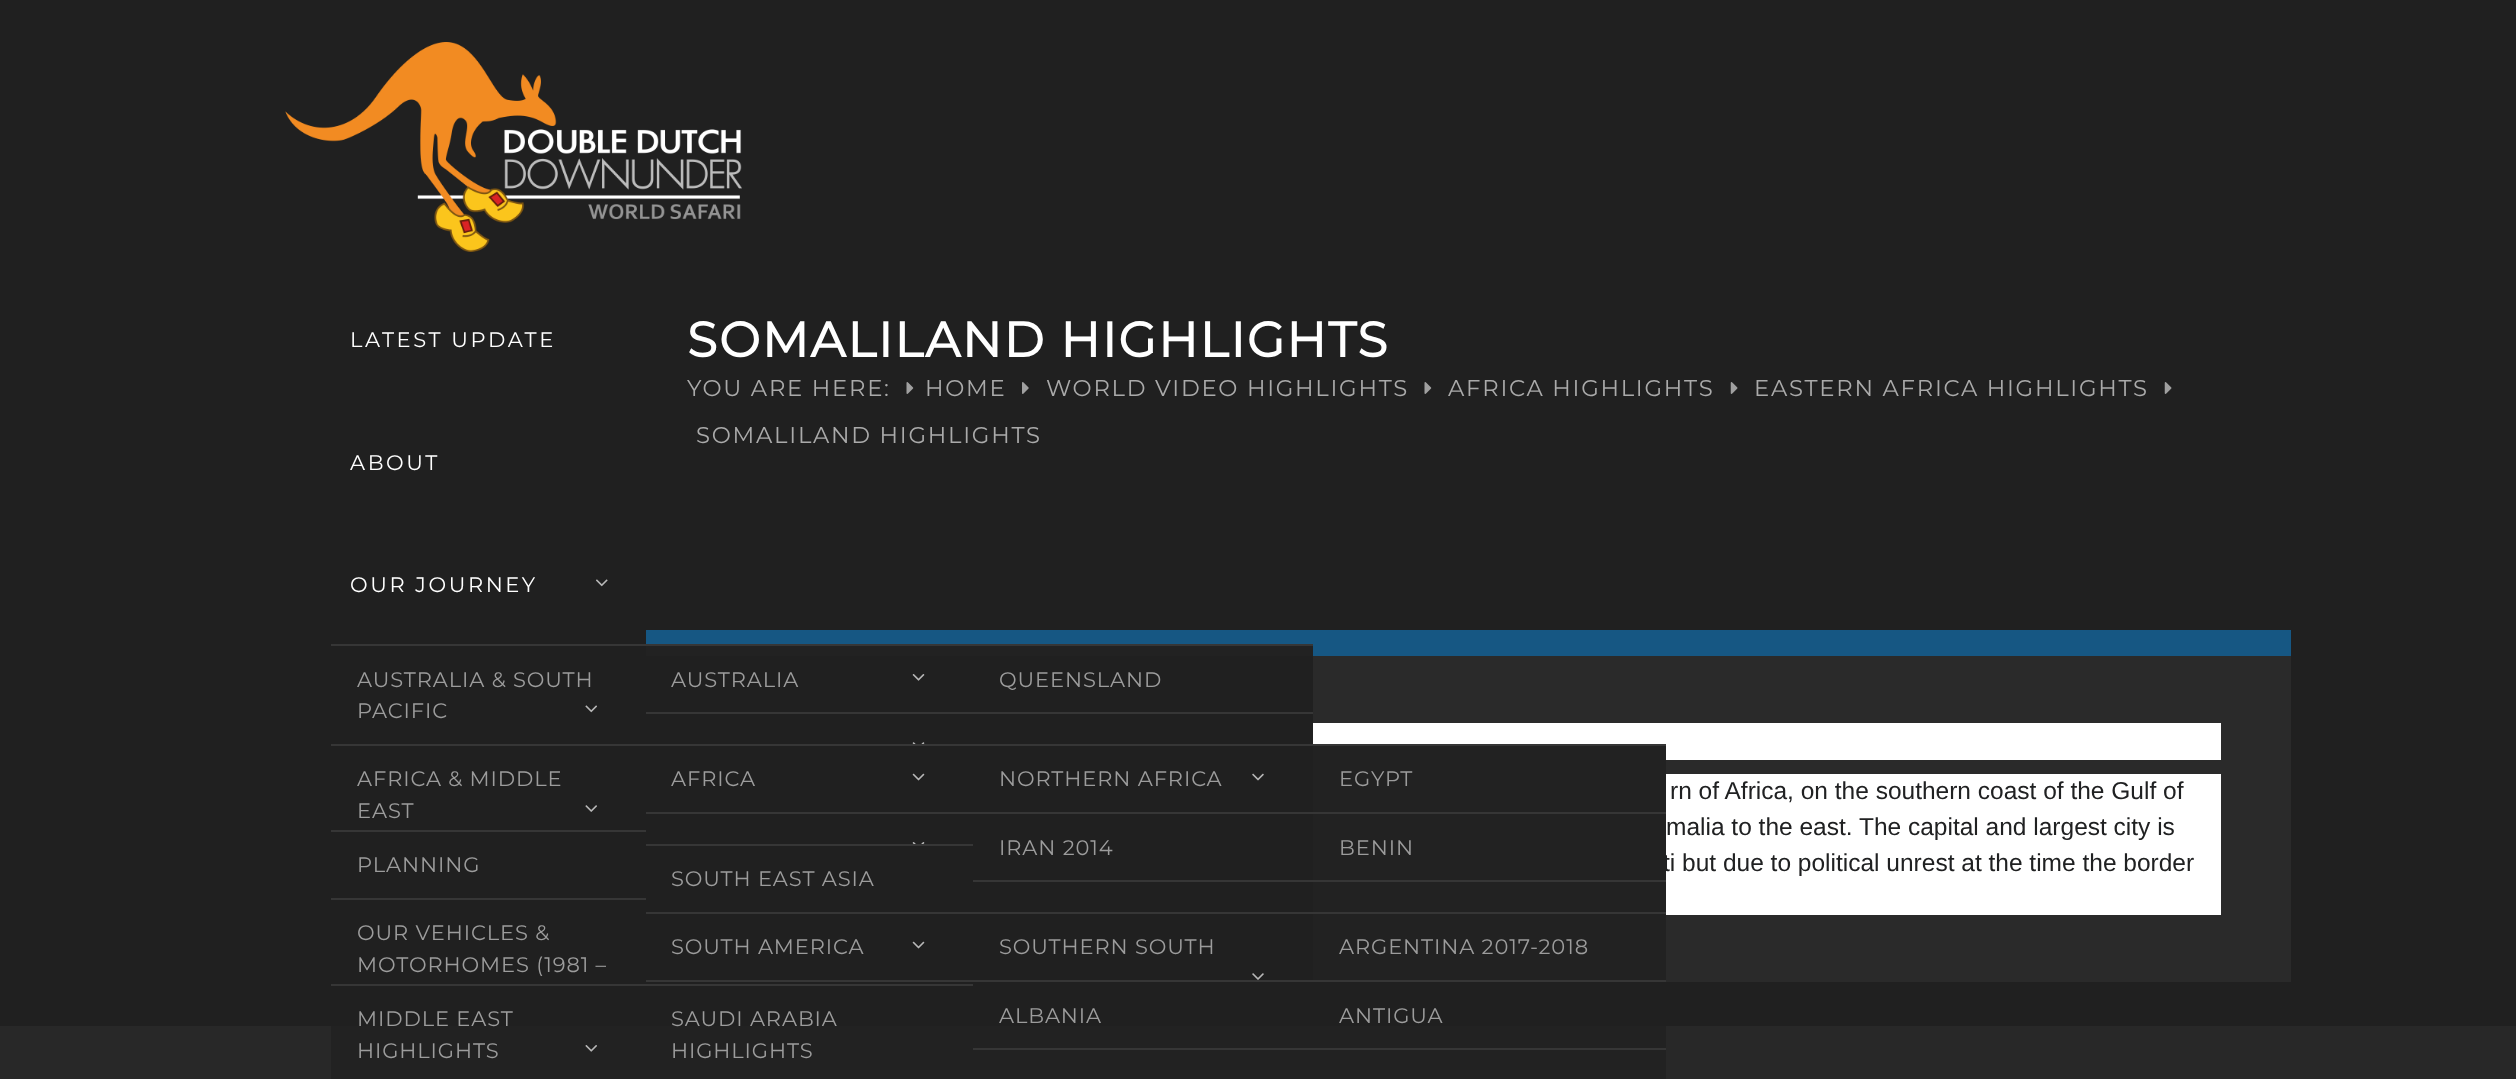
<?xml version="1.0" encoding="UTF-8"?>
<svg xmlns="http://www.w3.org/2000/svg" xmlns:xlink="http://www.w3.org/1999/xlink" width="2516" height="1079">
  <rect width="100%" height="100%" fill="#202020" />
  <image x="906" y="382" width="8" height="12" xlink:href="image1.png" />
  <image x="1022" y="382" width="7" height="12" xlink:href="image2.png" />
  <image x="1424" y="382" width="8" height="12" xlink:href="image1.png" />
  <image x="1730" y="382" width="8" height="12" xlink:href="image3.png" />
  <image x="2164" y="382" width="8" height="12" xlink:href="image3.png" />
  <image x="285" y="42" width="457" height="210" xlink:href="image4.png" />
  <image x="596" y="579" width="12" height="8" xlink:href="image5.png" />
  <rect x="646" y="630" width="1645" height="26" fill="#165783" />
  <rect x="331" y="644" width="982" height="2" fill="#363636" />
  <image x="585" y="705" width="12" height="8" xlink:href="image6.png" />
  <rect x="646" y="646" width="667" height="10" fill="#222222" />
  <image x="912" y="674" width="13" height="7" xlink:href="image7.png" />
  <rect x="646" y="712" width="667" height="2" fill="#363636" />
  <image x="912" y="742" width="13" height="2" xlink:href="image8.png" />
  <rect x="1313" y="656" width="978" height="326" fill="#2a2a2a" />
  <rect x="1313" y="723" width="908" height="37" fill="#ffffff" />
  <rect x="331" y="744" width="1335" height="2" fill="#363636" />
  <image x="585" y="805" width="12" height="7" xlink:href="image9.png" />
  <image x="912" y="773" width="13" height="8" xlink:href="image10.png" />
  <image x="1252" y="773" width="12" height="8" xlink:href="image11.png" />
  <rect x="1313" y="746" width="353" height="66" fill="#222222" />
  <rect x="973" y="812" width="693" height="2" fill="#363636" />
  <rect x="1313" y="882" width="353" height="30" fill="#222222" />
  <rect x="973" y="880" width="693" height="2" fill="#363636" />
  <rect x="646" y="812" width="327" height="2" fill="#363636" />
  <image x="912" y="842" width="13" height="2" xlink:href="image12.png" />
  <rect x="646" y="844" width="327" height="2" fill="#363636" />
  <rect x="646" y="912" width="1020" height="2" fill="#363636" />
  <image x="912" y="941" width="13" height="8" xlink:href="image10.png" />
  <image x="1252" y="973" width="12" height="7" xlink:href="image13.png" />
  <rect x="1313" y="914" width="353" height="66" fill="#222222" />
  <rect y="1026" width="2516" height="53" fill="#282828" />
  <rect x="973" y="1026" width="693" height="22" fill="#222222" />
  <rect x="1313" y="980" width="353" height="2" fill="#363636" />
  <rect x="973" y="1050" width="693" height="29" fill="#222222" />
  <rect x="973" y="1048" width="693" height="2" fill="#363636" />
  <rect x="646" y="980" width="667" height="2" fill="#363636" />
  <rect x="331" y="830" width="315" height="2" fill="#363636" />
  <rect x="331" y="898" width="315" height="2" fill="#363636" />
  <rect x="331" y="1026" width="642" height="53" fill="#222222" />
  <rect x="331" y="984" width="642" height="2" fill="#363636" />
  <image x="585" y="1045" width="12" height="7" xlink:href="image14.png" />
  <rect x="1666" y="774" width="555" height="141" fill="#ffffff" />
  <text x="687" y="357" style="font-family: Montserrat; font-size: 49px; font-weight: bold; letter-spacing: 1.75px; fill: #ffffff">SOMALILAND HIGHLIGHTS</text>
  <text x="687" y="396" style="font-family: Montserrat; font-size: 22.75px; font-weight: 100; letter-spacing: 1.75px; fill: #aaaaaa">YOU ARE HERE:</text>
  <text x="925" y="396" style="font-family: Montserrat; font-size: 22.75px; font-weight: 100; letter-spacing: 1.75px; fill: #aaaaaa">HOME</text>
  <text x="1046" y="396" style="font-family: Montserrat; font-size: 22.75px; font-weight: 100; letter-spacing: 1.75px; fill: #aaaaaa">WORLD VIDEO HIGHLIGHTS</text>
  <text x="1448" y="396" style="font-family: Montserrat; font-size: 22.75px; font-weight: 100; letter-spacing: 1.75px; fill: #aaaaaa">AFRICA HIGHLIGHTS</text>
  <text x="1754" y="396" style="font-family: Montserrat; font-size: 22.75px; font-weight: 100; letter-spacing: 1.75px; fill: #aaaaaa">EASTERN AFRICA HIGHLIGHTS</text>
  <text x="696" y="443" style="font-family: Montserrat; font-size: 22.75px; font-weight: 100; letter-spacing: 1.75px; fill: #aaaaaa">SOMALILAND HIGHLIGHTS</text>
  <text x="350" y="347" style="font-family: Montserrat; font-size: 21px; font-weight: 100; letter-spacing: 2.6px; fill: #ffffff">LATEST UPDATE</text>
  <text x="350" y="470" style="font-family: Montserrat; font-size: 21px; font-weight: 100; letter-spacing: 2.6px; fill: #ffffff">ABOUT</text>
  <text x="350" y="592" style="font-family: Montserrat; font-size: 21px; font-weight: 100; letter-spacing: 2.6px; fill: #ffffff">OUR JOURNEY</text>
  <text x="357" y="687" style="font-family: Montserrat; font-size: 21px; font-weight: 100; letter-spacing: 0.9px; fill: #9c9c9c">AUSTRALIA &amp; SOUTH</text>
  <text x="357" y="718" style="font-family: Montserrat; font-size: 21px; font-weight: 100; letter-spacing: 0.9px; fill: #9c9c9c">PACIFIC</text>
  <text x="671" y="687" style="font-family: Montserrat; font-size: 21px; font-weight: 100; letter-spacing: 0.9px; fill: #9c9c9c">AUSTRALIA</text>
  <text x="999" y="687" style="font-family: Montserrat; font-size: 21px; font-weight: 100; letter-spacing: 0.9px; fill: #9c9c9c">QUEENSLAND</text>
  <text x="357" y="786" style="font-family: Montserrat; font-size: 21px; font-weight: 100; letter-spacing: 0.9px; fill: #9c9c9c">AFRICA &amp; MIDDLE</text>
  <text x="357" y="818" style="font-family: Montserrat; font-size: 21px; font-weight: 100; letter-spacing: 0.9px; fill: #9c9c9c">EAST</text>
  <text x="671" y="786" style="font-family: Montserrat; font-size: 21px; font-weight: 100; letter-spacing: 0.9px; fill: #9c9c9c">AFRICA</text>
  <text x="999" y="786" style="font-family: Montserrat; font-size: 21px; font-weight: 100; letter-spacing: 0.9px; fill: #9c9c9c">NORTHERN AFRICA</text>
  <text x="1339" y="786" style="font-family: Montserrat; font-size: 21px; font-weight: 100; letter-spacing: 0.9px; fill: #9c9c9c">EGYPT</text>
  <text x="999" y="855" style="font-family: Montserrat; font-size: 21px; font-weight: 100; letter-spacing: 0.9px; fill: #9c9c9c">IRAN 2014</text>
  <text x="671" y="886" style="font-family: Montserrat; font-size: 21px; font-weight: 100; letter-spacing: 0.9px; fill: #9c9c9c">SOUTH EAST ASIA</text>
  <text x="671" y="954" style="font-family: Montserrat; font-size: 21px; font-weight: 100; letter-spacing: 0.9px; fill: #9c9c9c">SOUTH AMERICA</text>
  <text x="999" y="954" style="font-family: Montserrat; font-size: 21px; font-weight: 100; letter-spacing: 0.9px; fill: #9c9c9c">SOUTHERN SOUTH</text>
  <text x="1339" y="954" style="font-family: Montserrat; font-size: 21px; font-weight: 100; letter-spacing: 0.9px; fill: #9c9c9c">ARGENTINA 2017-2018</text>
  <text x="1339" y="1023" style="font-family: Montserrat; font-size: 21px; font-weight: 100; letter-spacing: 0.9px; fill: #9c9c9c">ANTIGUA</text>
  <text x="999" y="1023" style="font-family: Montserrat; font-size: 21px; font-weight: 100; letter-spacing: 0.9px; fill: #9c9c9c">ALBANIA</text>
  <text x="357" y="872" style="font-family: Montserrat; font-size: 21px; font-weight: 100; letter-spacing: 0.9px; fill: #9c9c9c">PLANNING</text>
  <text x="357" y="940" style="font-family: Montserrat; font-size: 21px; font-weight: 100; letter-spacing: 0.9px; fill: #9c9c9c">OUR VEHICLES &amp;</text>
  <text x="357" y="972" style="font-family: Montserrat; font-size: 21px; font-weight: 100; letter-spacing: 0.9px; fill: #9c9c9c">MOTORHOMES (1981 –</text>
  <text x="357" y="1026" style="font-family: Montserrat; font-size: 21px; font-weight: 100; letter-spacing: 0.9px; fill: #9c9c9c">MIDDLE EAST</text>
  <text x="357" y="1058" style="font-family: Montserrat; font-size: 21px; font-weight: 100; letter-spacing: 0.9px; fill: #9c9c9c">HIGHLIGHTS</text>
  <text x="671" y="1026" style="font-family: Montserrat; font-size: 21px; font-weight: 100; letter-spacing: 0.9px; fill: #9c9c9c">SAUDI ARABIA</text>
  <text x="671" y="1058" style="font-family: Montserrat; font-size: 21px; font-weight: 100; letter-spacing: 0.9px; fill: #9c9c9c">HIGHLIGHTS</text>
  <text x="1670" y="799" style="font-family: Liberation Sans; font-size: 24.5px; fill: #202122">rn of Africa, on the southern coast of the Gulf of</text>
  <text x="1666" y="835" style="font-family: Liberation Sans; font-size: 24.5px; fill: #202122">malia to the east. The capital and largest city is</text>
  <text x="1663" y="871" style="font-family: Liberation Sans; font-size: 24.5px; fill: #202122">ti but due to political unrest at the time the border</text>
  <rect x="1313" y="814" width="353" height="66" fill="#222222" />
  <text x="1339" y="855" style="font-family: Montserrat; font-size: 21px; font-weight: 100; letter-spacing: 0.9px; fill: #9c9c9c">BENIN</text>
</svg>
